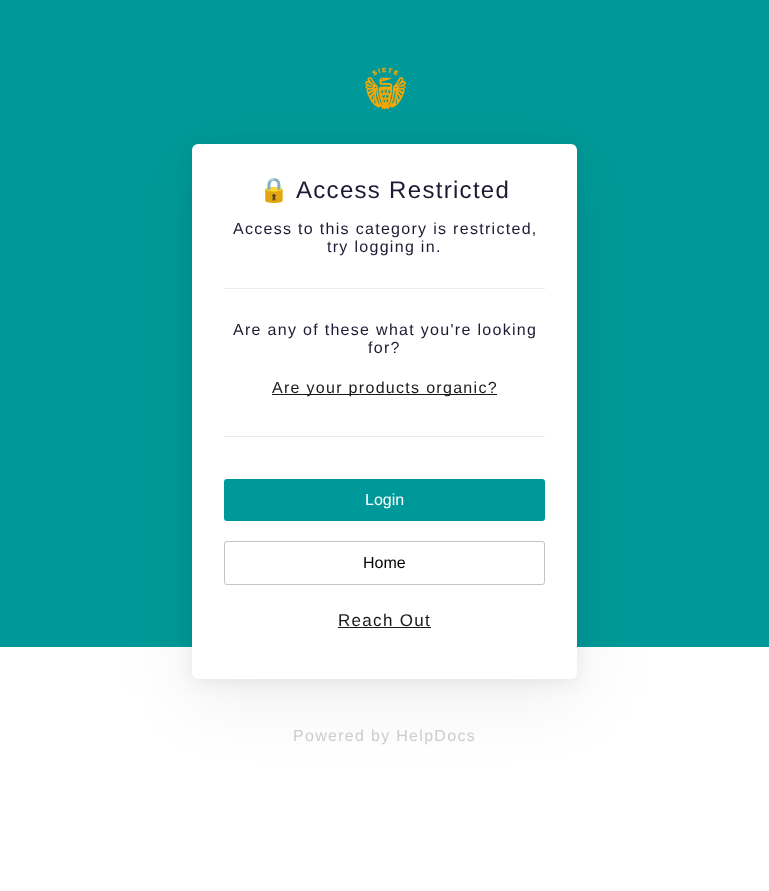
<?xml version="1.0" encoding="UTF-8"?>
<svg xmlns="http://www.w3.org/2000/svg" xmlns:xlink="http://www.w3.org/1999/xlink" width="769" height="891">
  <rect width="100%" height="100%" fill="#ffffff" />
  <rect width="769" height="647" fill="#009999" />
  <image x="365" y="67" width="41" height="43" xlink:href="image1.png" />
  <rect x="192" y="161" width="385" height="535" rx="6" fill="#000000" fill-opacity="0.07" filter="blur(36.5px)" />
  <rect x="192" y="148" width="385" height="535" rx="6" fill="#000000" fill-opacity="0.06" filter="blur(8px)" />
  <rect x="192" y="144" width="385" height="535" rx="6" fill="#ffffff" />
  <rect x="224" y="288" width="321" height="1" fill="#eaeaea" />
  <rect x="272" y="394" width="225" height="1" fill="#191919" />
  <rect x="224" y="436" width="321" height="1" fill="#eaeaea" />
  <rect x="224" y="479" width="321" height="42" rx="3" fill="#009999" />
  <rect x="224.5" y="541.5" width="320" height="43" rx="2.5" fill="none" stroke="#c3c3c3" />
  <rect x="338" y="627" width="93" height="1" fill="#191919" />
  <text x="259" y="198" style="font-family: Noto Color Emoji; font-size: 24px; letter-spacing: 1.3px; fill: #1e1a34">🔒</text>
  <text x="296" y="198" style="font-family: Liberation Sans; font-size: 24px; letter-spacing: 1.3px; fill: #1e1a34">Access Restricted</text>
  <text x="233" y="234" style="font-family: Liberation Sans; font-size: 16px; letter-spacing: 1.3px; fill: #1e1a34">Access to this category is restricted,</text>
  <text x="327" y="252" style="font-family: Liberation Sans; font-size: 16px; letter-spacing: 1.3px; fill: #1e1a34">try logging in.</text>
  <text x="233" y="335" style="font-family: Liberation Sans; font-size: 16px; letter-spacing: 1.3px; fill: #1e1a34">Are any of these what you're looking</text>
  <text x="368" y="353" style="font-family: Liberation Sans; font-size: 16px; letter-spacing: 1.3px; fill: #1e1a34">for?</text>
  <text x="272" y="393" style="font-family: Liberation Sans; font-size: 16px; letter-spacing: 1.3px; fill: #191919">Are your products organic?</text>
  <text x="365" y="505" style="font-family: Liberation Sans; font-size: 16px; fill: #ffffff">Login</text>
  <text x="363" y="568" style="font-family: Liberation Sans; font-size: 16px; fill: #000000">Home</text>
  <text x="338" y="626" style="font-family: Liberation Sans; font-size: 17px; letter-spacing: 1.3px; fill: #191919">Reach Out</text>
  <text x="293" y="741" style="font-family: Liberation Sans; font-size: 16px; letter-spacing: 1.3px; fill: #cccccc">Powered by HelpDocs</text>
</svg>
